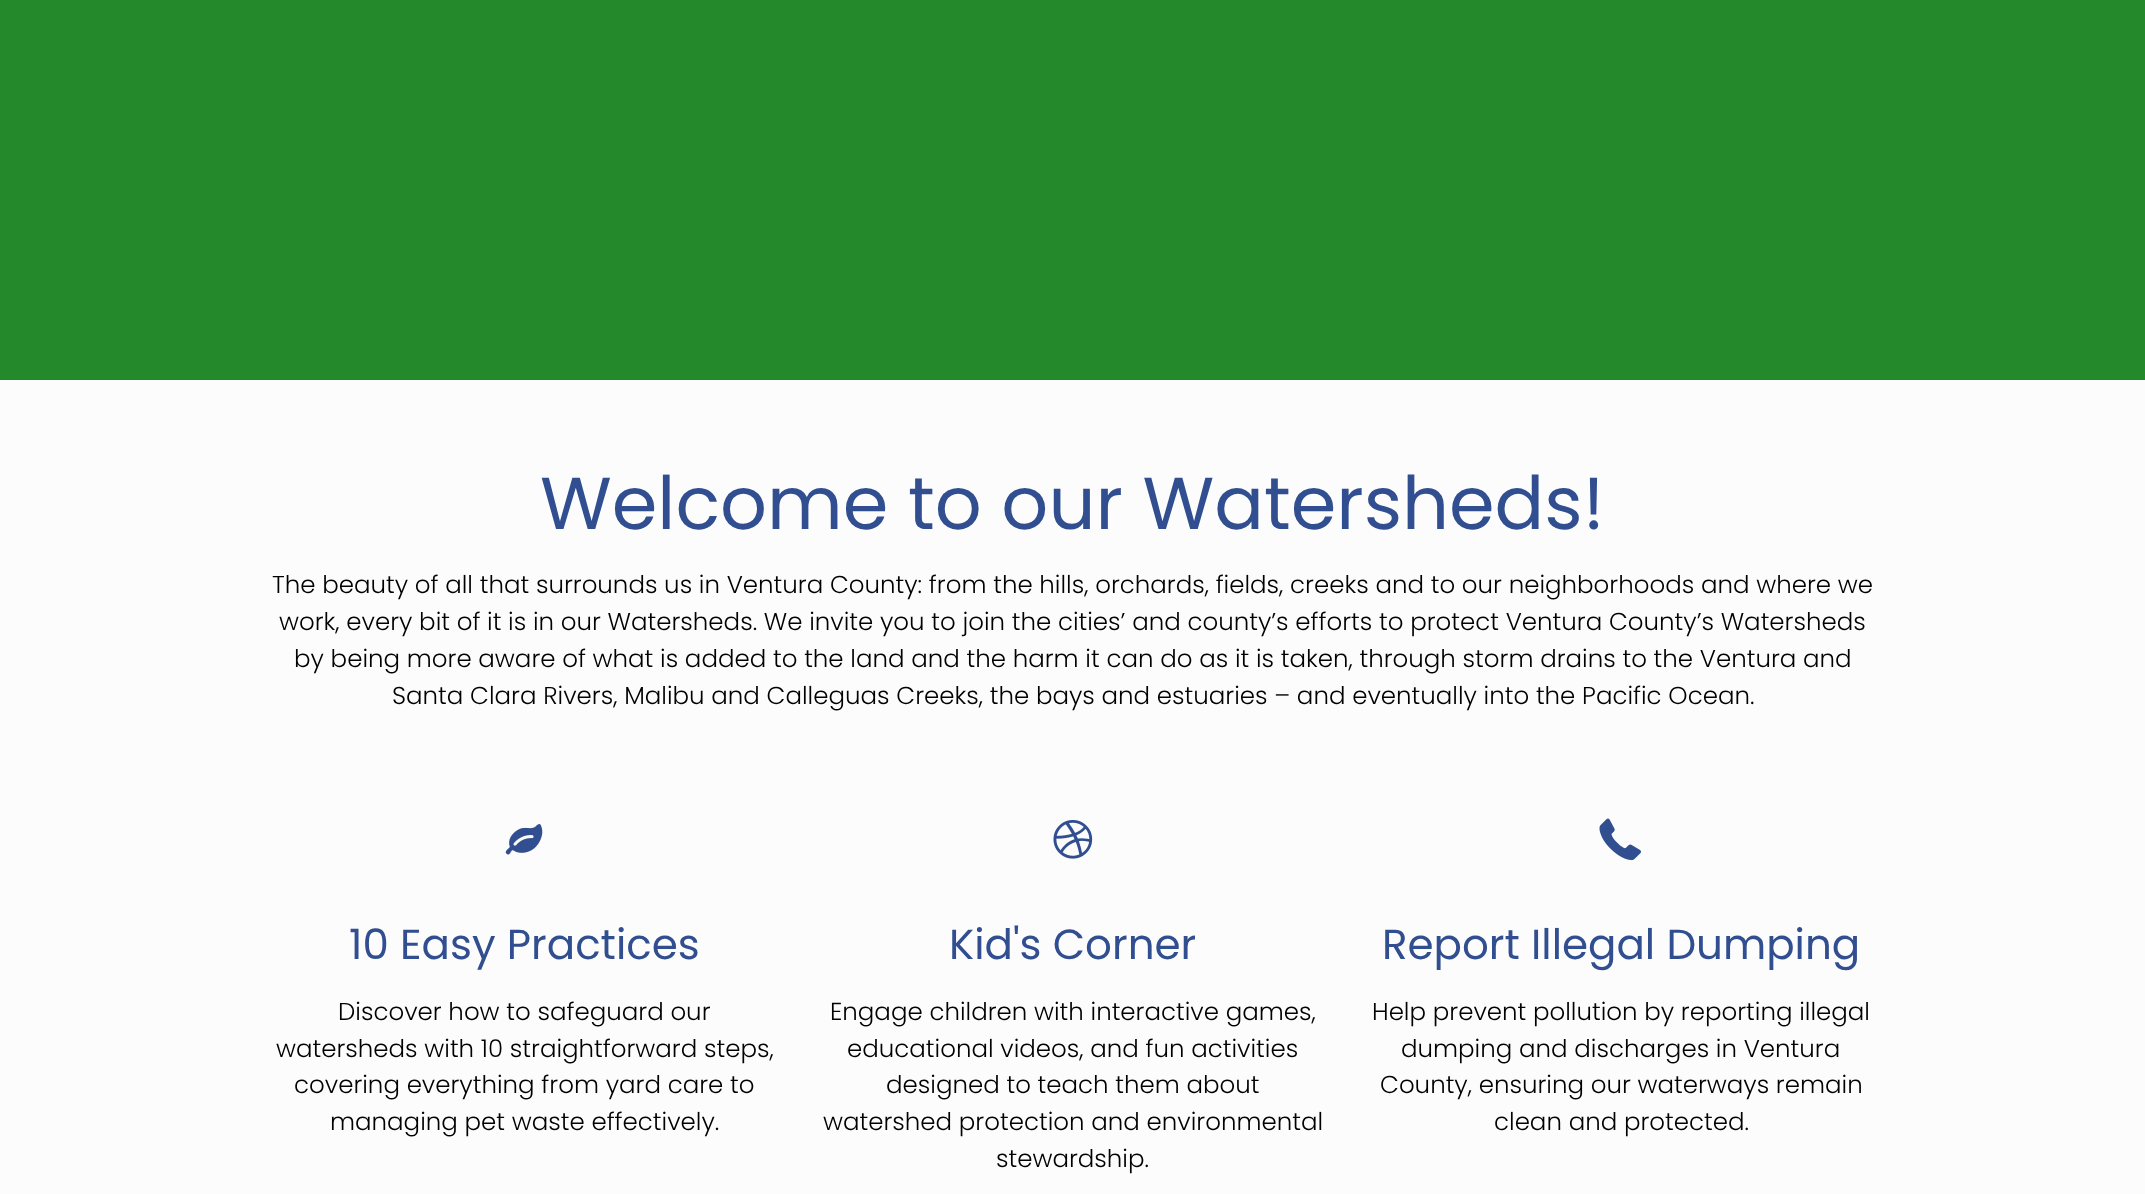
<?xml version="1.0" encoding="UTF-8"?>
<svg xmlns="http://www.w3.org/2000/svg" xmlns:xlink="http://www.w3.org/1999/xlink" width="2145" height="1194">
  <rect width="100%" height="100%" fill="#fcfcfc" />
  <rect width="2145" height="380" fill="#24892b" />
  <image x="505" y="824" width="38" height="31" xlink:href="image1.png" />
  <image x="1053" y="820" width="40" height="39" xlink:href="image2.png" />
  <image x="1599" y="818" width="42" height="43" xlink:href="image3.png" />
  <text x="540" y="529" style="font-family: Poppins; font-size: 73.5px; fill: #314f90">Welcome to our Watersheds!</text>
  <text x="272" y="593" style="font-family: Poppins; font-size: 24.5px; font-weight: 300; fill: #000000">The beauty of all that surrounds us in Ventura County: from the hills, orchards, fields, creeks and to our neighborhoods and where we</text>
  <text x="279" y="630" style="font-family: Poppins; font-size: 24.5px; font-weight: 300; fill: #000000">work, every bit of it is in our Watersheds. We invite you to join the cities’ and county’s efforts to protect Ventura County’s Watersheds</text>
  <text x="294" y="667" style="font-family: Poppins; font-size: 24.5px; font-weight: 300; fill: #000000">by being more aware of what is added to the land and the harm it can do as it is taken, through storm drains to the Ventura and</text>
  <text x="392" y="704" style="font-family: Poppins; font-size: 24.5px; font-weight: 300; fill: #000000">Santa Clara Rivers, Malibu and Calleguas Creeks, the bays and estuaries – and eventually into the Pacific Ocean.</text>
  <text x="349" y="959" style="font-family: Poppins; font-size: 42px; fill: #314f90">10 Easy Practices</text>
  <text x="338" y="1020" style="font-family: Poppins; font-size: 24.5px; font-weight: 300; fill: #000000">Discover how to safeguard our</text>
  <text x="276" y="1057" style="font-family: Poppins; font-size: 24.5px; font-weight: 300; fill: #000000">watersheds with 10 straightforward steps,</text>
  <text x="294" y="1093" style="font-family: Poppins; font-size: 24.5px; font-weight: 300; fill: #000000">covering everything from yard care to</text>
  <text x="330" y="1130" style="font-family: Poppins; font-size: 24.5px; font-weight: 300; fill: #000000">managing pet waste effectively.</text>
  <text x="949" y="959" style="font-family: Poppins; font-size: 42px; fill: #314f90">Kid's Corner</text>
  <text x="830" y="1020" style="font-family: Poppins; font-size: 24.5px; font-weight: 300; fill: #000000">Engage children with interactive games,</text>
  <text x="847" y="1057" style="font-family: Poppins; font-size: 24.5px; font-weight: 300; fill: #000000">educational videos, and fun activities</text>
  <text x="886" y="1093" style="font-family: Poppins; font-size: 24.5px; font-weight: 300; fill: #000000">designed to teach them about</text>
  <text x="823" y="1130" style="font-family: Poppins; font-size: 24.5px; font-weight: 300; fill: #000000">watershed protection and environmental</text>
  <text x="996" y="1167" style="font-family: Poppins; font-size: 24.5px; font-weight: 300; fill: #000000">stewardship.</text>
  <text x="1382" y="959" style="font-family: Poppins; font-size: 42px; fill: #314f90">Report Illegal Dumping</text>
  <text x="1372" y="1020" style="font-family: Poppins; font-size: 24.5px; font-weight: 300; fill: #000000">Help prevent pollution by reporting illegal</text>
  <text x="1401" y="1057" style="font-family: Poppins; font-size: 24.5px; font-weight: 300; fill: #000000">dumping and discharges in Ventura</text>
  <text x="1380" y="1093" style="font-family: Poppins; font-size: 24.5px; font-weight: 300; fill: #000000">County, ensuring our waterways remain</text>
  <text x="1494" y="1130" style="font-family: Poppins; font-size: 24.5px; font-weight: 300; fill: #000000">clean and protected.</text>
</svg>
